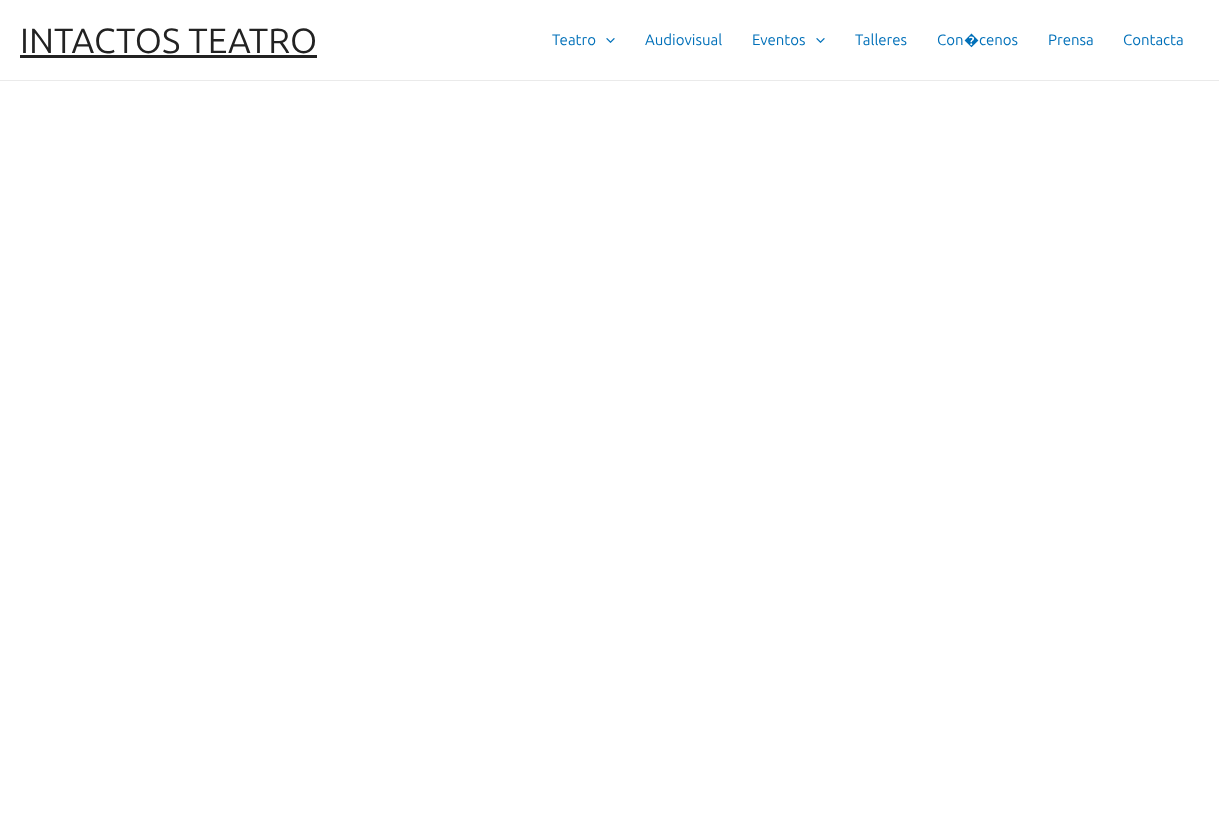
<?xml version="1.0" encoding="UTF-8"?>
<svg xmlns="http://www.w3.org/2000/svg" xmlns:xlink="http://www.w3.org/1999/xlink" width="1219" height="821">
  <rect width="100%" height="100%" fill="#ffffff" />
  <rect y="80" width="1219" height="1" fill="#eaeaea" />
  <rect x="20" y="55" width="297" height="3" fill="#222222" />
  <image x="606" y="38" width="9" height="5" xlink:href="image1.png" />
  <image x="816" y="38" width="9" height="5" xlink:href="image1.png" />
  <text x="20" y="53" style="font-family: Ubuntu; font-size: 35px; fill: #222222">INTACTOS TEATRO</text>
  <text x="552" y="45" style="font-family: Ubuntu; font-size: 15px; fill: #0170b9">Teatro</text>
  <text x="645" y="45" style="font-family: Ubuntu; font-size: 15px; fill: #0170b9">Audiovisual</text>
  <text x="752" y="45" style="font-family: Ubuntu; font-size: 15px; fill: #0170b9">Eventos</text>
  <text x="855" y="45" style="font-family: Ubuntu; font-size: 15px; fill: #0170b9">Talleres</text>
  <text x="937" y="45" style="font-family: Ubuntu; font-size: 15px; fill: #0170b9">Con</text>
  <text x="964" y="45" style="font-family: Noto Sans; font-size: 15px; fill: #0170b9">�</text>
  <text x="979" y="45" style="font-family: Ubuntu; font-size: 15px; fill: #0170b9">cenos</text>
  <text x="1048" y="45" style="font-family: Ubuntu; font-size: 15px; fill: #0170b9">Prensa</text>
  <text x="1123" y="45" style="font-family: Ubuntu; font-size: 15px; fill: #0170b9">Contacta</text>
</svg>
